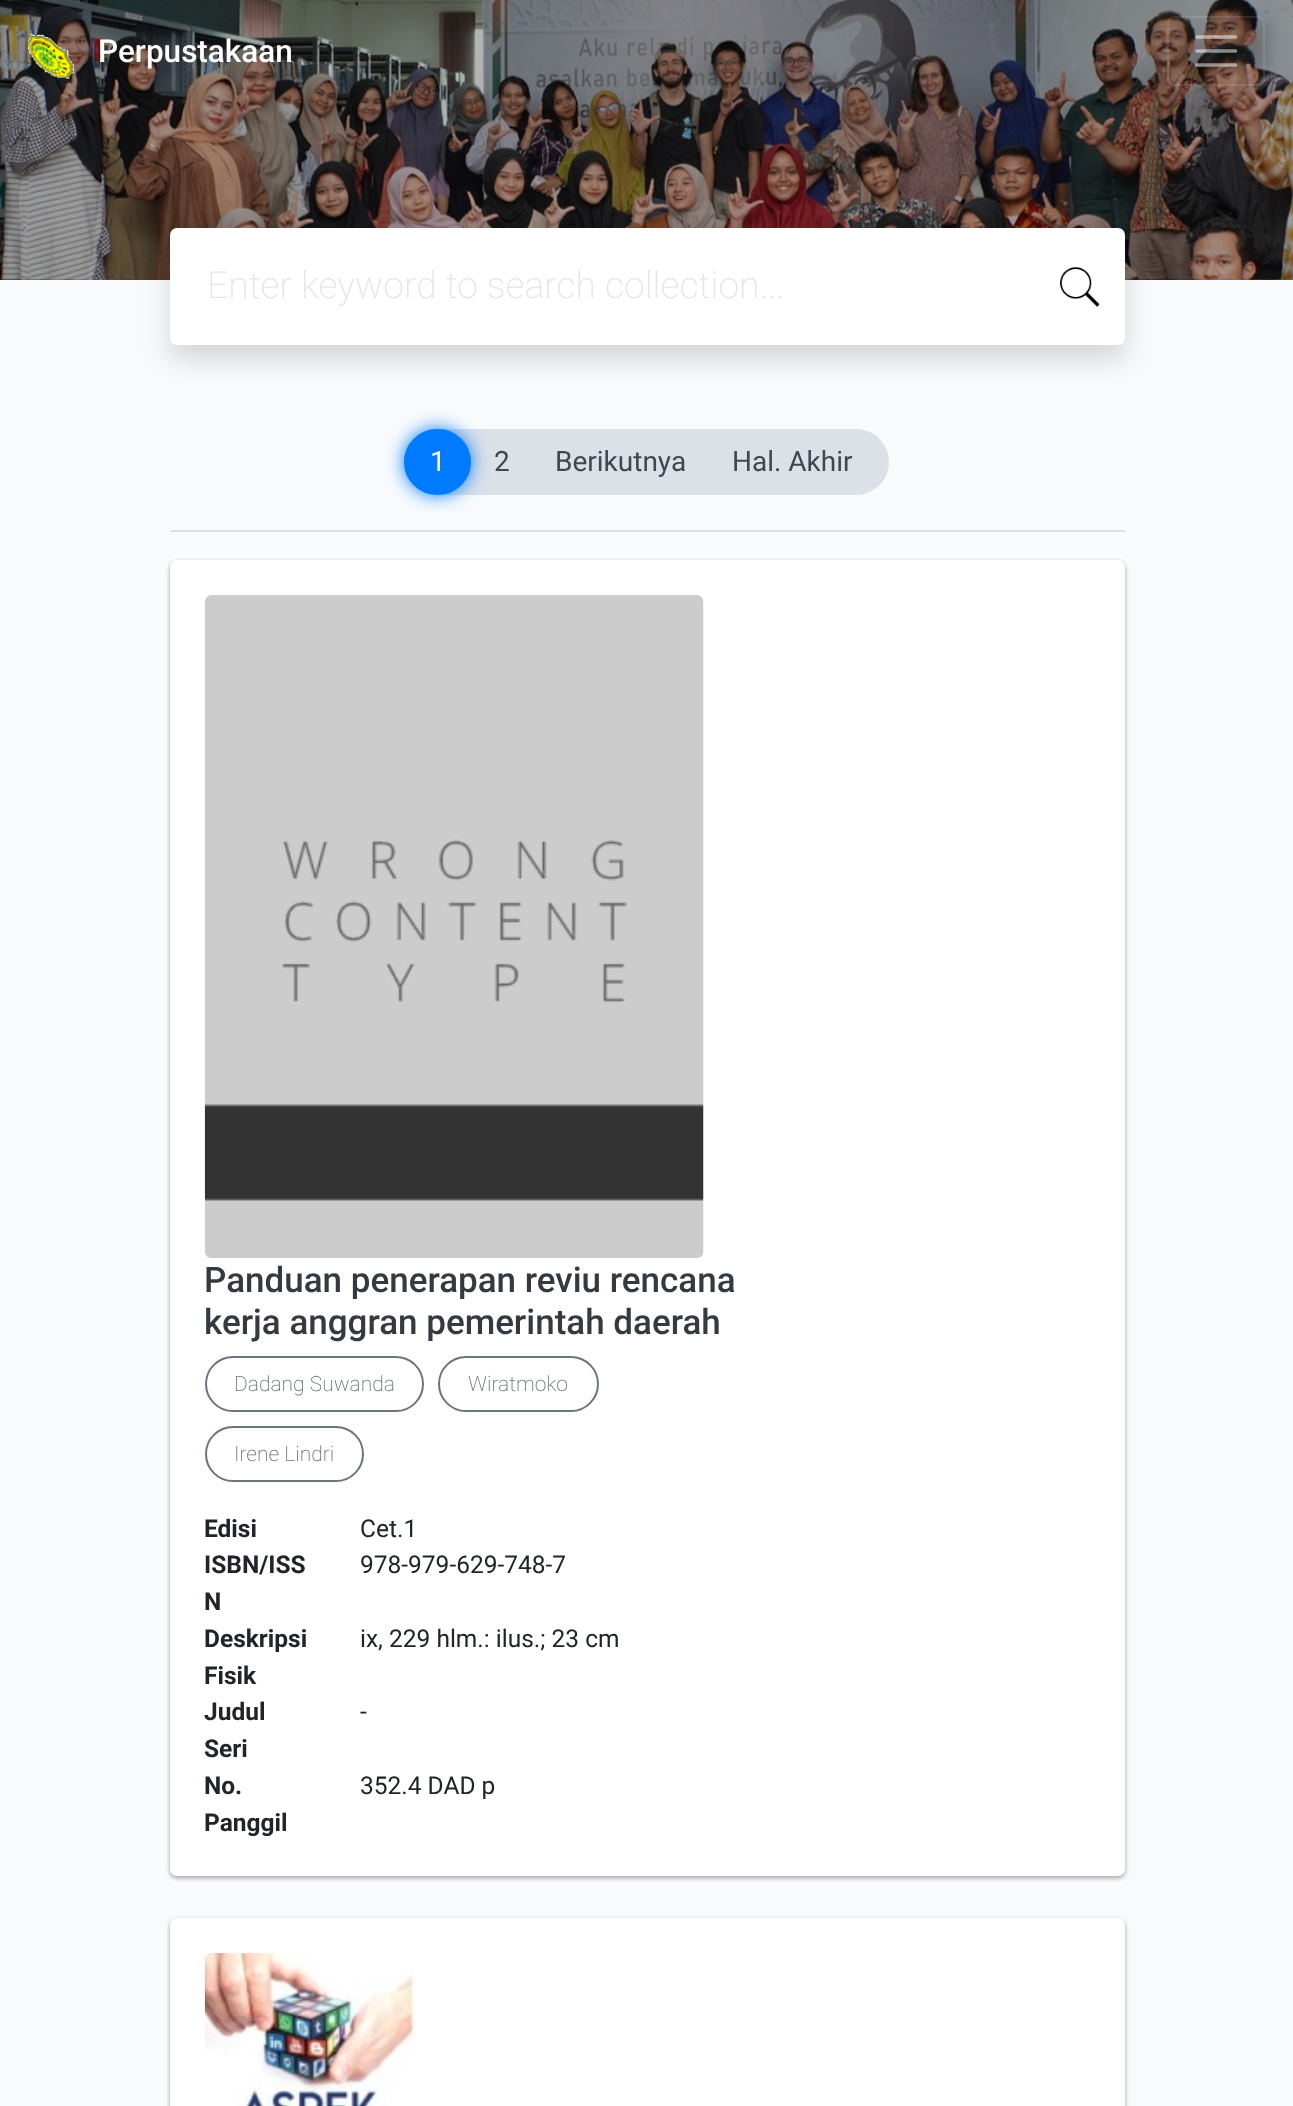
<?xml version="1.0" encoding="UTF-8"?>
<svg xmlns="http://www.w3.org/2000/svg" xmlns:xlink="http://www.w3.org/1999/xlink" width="1293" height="2106">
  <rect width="100%" height="100%" fill="#f8fafc" />
  <image x="0" y="279" width="1293" height="1" xlink:href="image1.png" />
  <image x="0" y="0" width="1293" height="280" xlink:href="image2.png" />
  <image x="28" y="33" width="46" height="46" xlink:href="image3.png" />
  <rect x="1168" y="17" width="96" height="68" rx="6" fill="none" stroke="#ffffff" stroke-opacity="0.1" stroke-width="2" />
  <path d="M 1197 37 h 38.5 m -38.5 14 h 38.5 m -38.5 14 h 38.5" fill="none" stroke="#ffffff" stroke-opacity="0.5" stroke-width="3.5" stroke-linecap="round" />
  <rect x="170" y="242" width="955" height="117" rx="7" fill="#000000" fill-opacity="0.15" filter="blur(14px)" />
  <rect x="170" y="228" width="955" height="117" rx="7" fill="#ffffff" />
  <image x="1060" y="267" width="40" height="40" xlink:href="image4.png" />
  <rect x="170" y="530" width="955" height="2" fill="#dae1e7" />
  <rect x="404" y="429" width="485" height="66" rx="33" fill="#dae1e7" />
  <rect x="404" y="429" width="67" height="66" rx="33" fill="#007bff" filter="blur(9px)" />
  <rect x="405" y="430" width="65" height="64" rx="32" fill="#007bff" stroke="#007bff" stroke-width="2" />
  <rect x="170" y="562" width="955" height="1316" rx="7" fill="#000000" fill-opacity="0.24" filter="blur(2px)" />
  <rect x="170" y="562" width="955" height="1316" rx="7" fill="#000000" fill-opacity="0.12" filter="blur(2.5px)" />
  <rect x="170" y="560" width="955" height="1316" rx="7" fill="#ffffff" />
  <image x="204" y="595" width="500" height="663" xlink:href="image5.png" />
  <rect x="206" y="1357" width="217" height="54" rx="27" fill="none" stroke="#6c757d" stroke-width="2" />
  <rect x="439" y="1357" width="159" height="54" rx="27" fill="none" stroke="#6c757d" stroke-width="2" />
  <rect x="206" y="1427" width="157" height="54" rx="27" fill="none" stroke="#6c757d" stroke-width="2" />
  <rect x="170" y="1920" width="955" height="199" rx="7" fill="#000000" fill-opacity="0.24" filter="blur(2px)" />
  <rect x="170" y="1920" width="955" height="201" rx="7" fill="#000000" fill-opacity="0.12" filter="blur(2.5px)" />
  <rect x="170" y="1918" width="955" height="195" rx="7" fill="#ffffff" />
  <image x="204" y="1953" width="211" height="153" xlink:href="image6.png" />
  <text x="98" y="62" style="font-family: Roboto; font-size: 31.5px; font-weight: 500; fill: #ffffff">Perpustakaan</text>
  <text x="207" y="298" style="font-family: Roboto; font-size: 37.3px; font-weight: 200; fill: #e6e6e6">Enter keyword to search collection...</text>
  <text x="430" y="471" style="font-family: Roboto; font-size: 28px; fill: #ffffff">1</text>
  <text x="494" y="471" style="font-family: Roboto; font-size: 28px; fill: #3d4852">2</text>
  <text x="555" y="471" style="font-family: Roboto; font-size: 28px; fill: #3d4852">Berikutnya</text>
  <text x="732" y="471" style="font-family: Roboto; font-size: 28px; fill: #3d4852">Hal. Akhir</text>
  <text x="204" y="1292" style="font-family: Roboto; font-size: 35px; font-weight: 500; fill: #343a40">Panduan penerapan reviu rencana</text>
  <text x="204" y="1334" style="font-family: Roboto; font-size: 35px; font-weight: 500; fill: #343a40">kerja anggran pemerintah daerah</text>
  <text x="234" y="1391" style="font-family: Roboto; font-size: 21px; font-weight: 200; fill: #6c757d">Dadang Suwanda</text>
  <text x="468" y="1391" style="font-family: Roboto; font-size: 21px; font-weight: 200; fill: #6c757d">Wiratmoko</text>
  <text x="234" y="1461" style="font-family: Roboto; font-size: 21px; font-weight: 200; fill: #6c757d">Irene Lindri</text>
  <text x="204" y="1537" style="font-family: Roboto; font-size: 24.5px; font-weight: bold; fill: #212529">Edisi</text>
  <text x="360" y="1537" style="font-family: Roboto; font-size: 24.5px; fill: #212529">Cet.1</text>
  <text x="204" y="1573" style="font-family: Roboto; font-size: 24.5px; font-weight: bold; fill: #212529">ISBN/ISS</text>
  <text x="204" y="1610" style="font-family: Roboto; font-size: 24.5px; font-weight: bold; fill: #212529">N</text>
  <text x="360" y="1573" style="font-family: Roboto; font-size: 24.5px; fill: #212529">978-979-629-748-7</text>
  <text x="204" y="1647" style="font-family: Roboto; font-size: 24.5px; font-weight: bold; fill: #212529">Deskripsi</text>
  <text x="204" y="1684" style="font-family: Roboto; font-size: 24.5px; font-weight: bold; fill: #212529">Fisik</text>
  <text x="360" y="1647" style="font-family: Roboto; font-size: 24.5px; fill: #212529">ix, 229 hlm.: ilus.; 23 cm</text>
  <text x="204" y="1720" style="font-family: Roboto; font-size: 24.5px; font-weight: bold; fill: #212529">Judul</text>
  <text x="204" y="1757" style="font-family: Roboto; font-size: 24.5px; font-weight: bold; fill: #212529">Seri</text>
  <text x="360" y="1720" style="font-family: Roboto; font-size: 24.5px; fill: #212529">-</text>
  <text x="204" y="1794" style="font-family: Roboto; font-size: 24.5px; font-weight: bold; fill: #212529">No.</text>
  <text x="204" y="1831" style="font-family: Roboto; font-size: 24.5px; font-weight: bold; fill: #212529">Panggil</text>
  <text x="360" y="1794" style="font-family: Roboto; font-size: 24.5px; fill: #212529">352.4 DAD p</text>
</svg>
